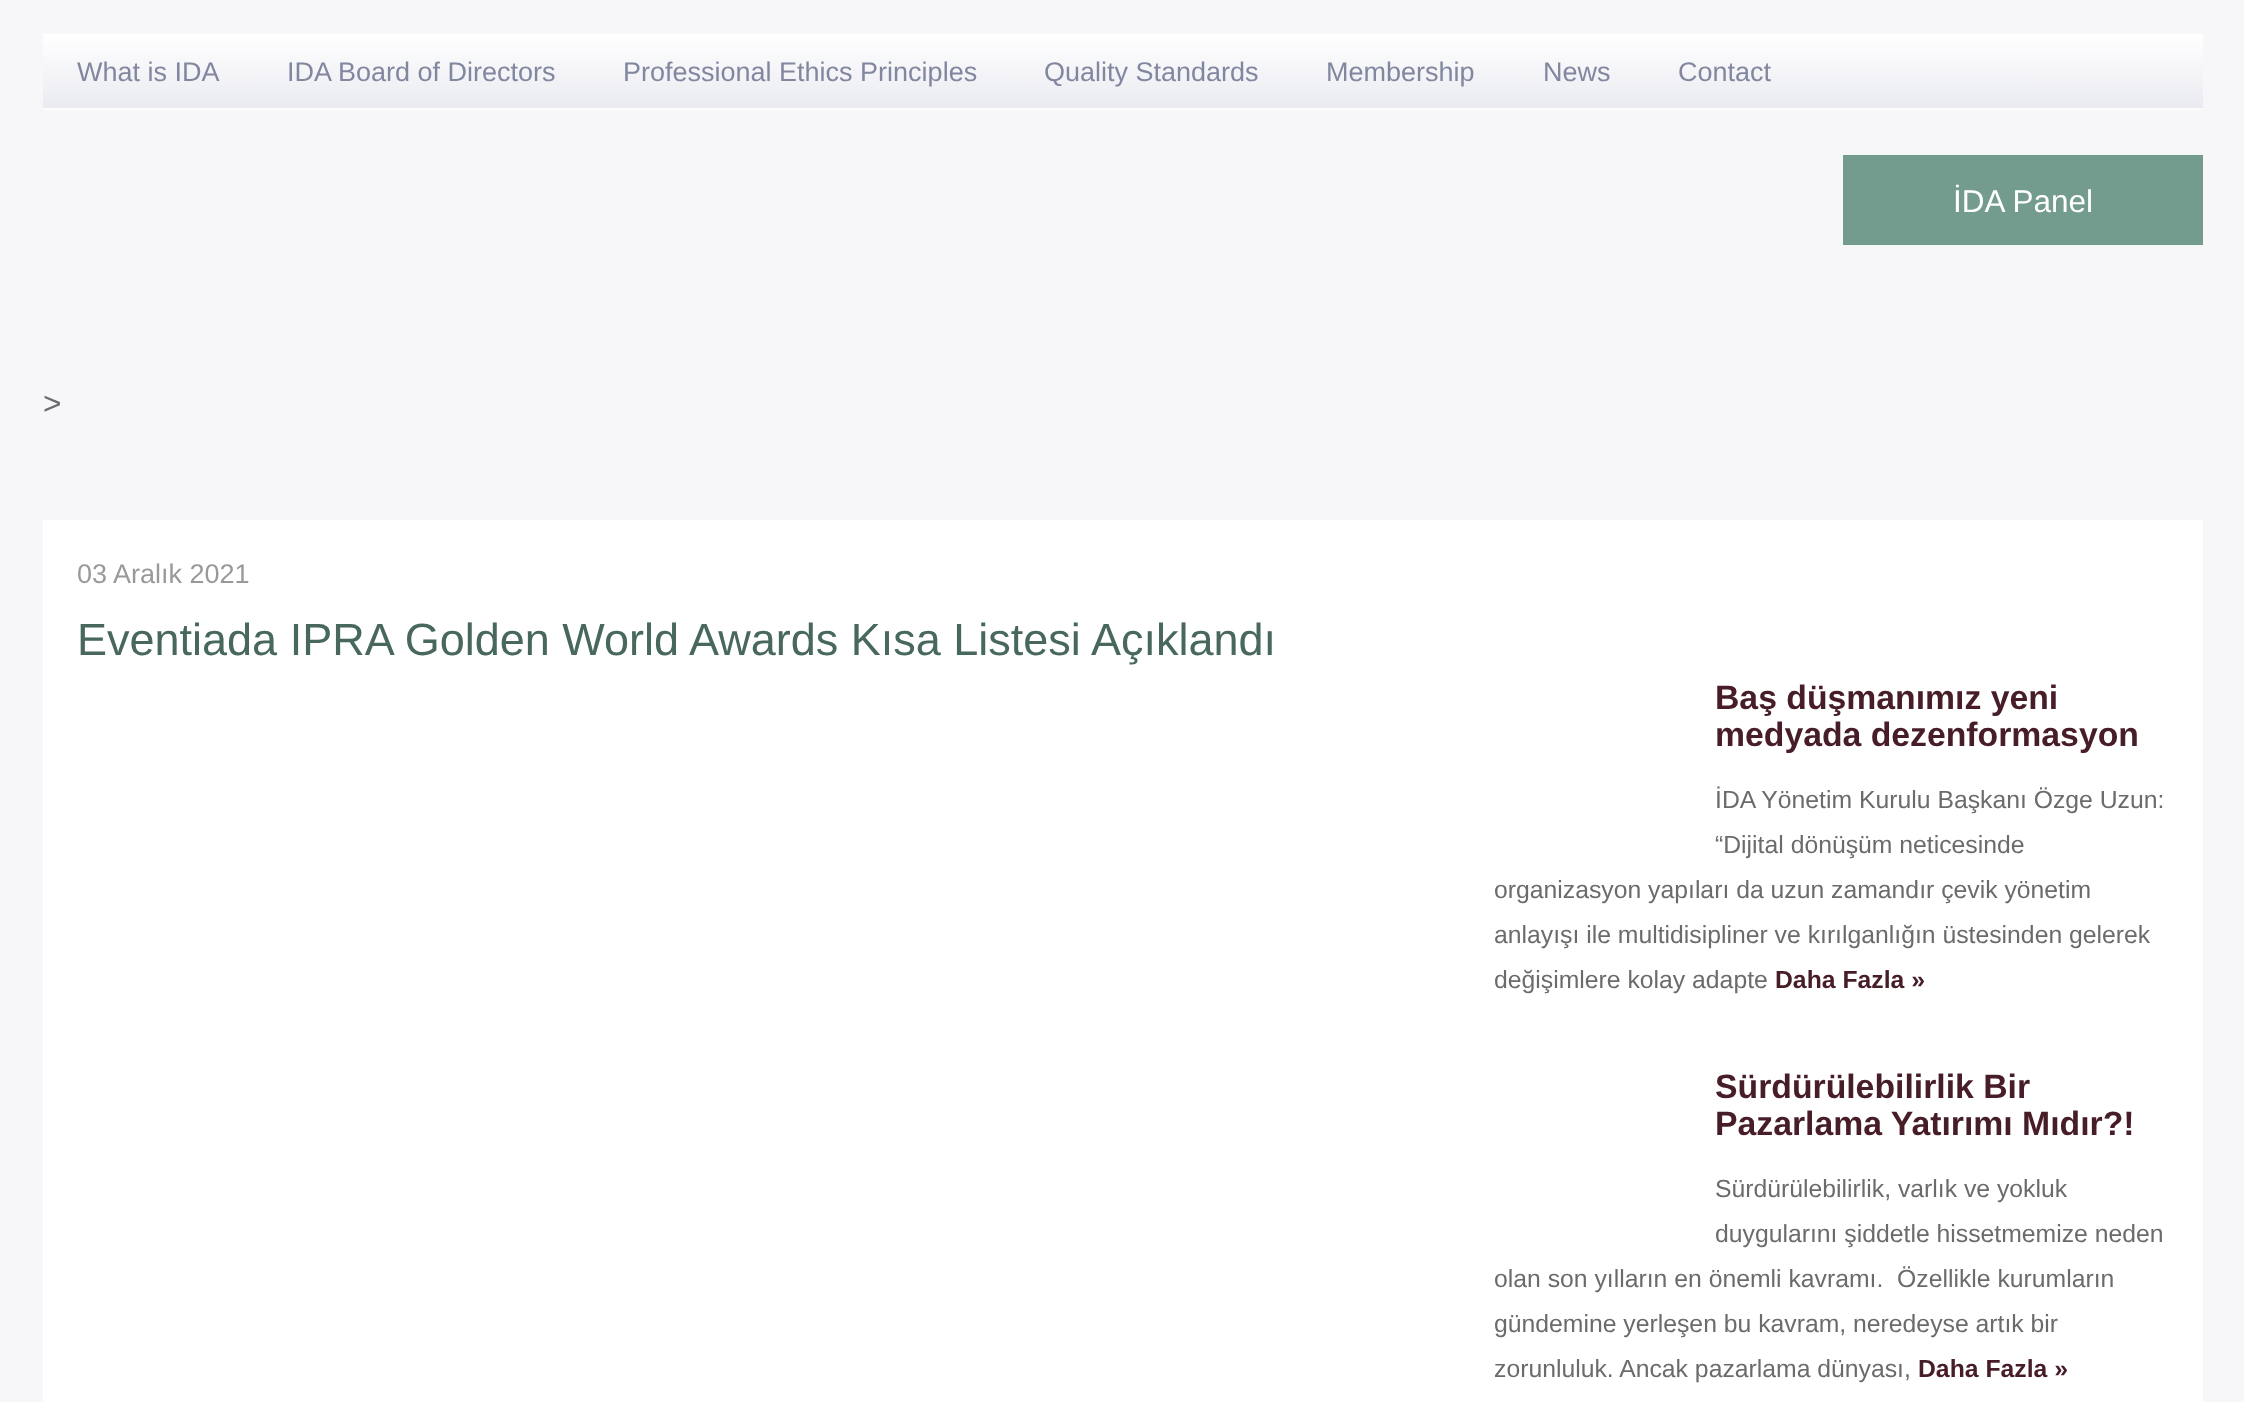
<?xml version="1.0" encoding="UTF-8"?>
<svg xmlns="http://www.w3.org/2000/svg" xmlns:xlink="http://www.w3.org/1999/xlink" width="2244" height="1402">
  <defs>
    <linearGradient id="g1" gradientUnits="userSpaceOnUse" x1="1123" y1="34" x2="1123" y2="108"><stop offset="0" stop-color="#ffffff" /><stop offset="1" stop-color="#eaebf1" /></linearGradient>
  </defs>
  <rect width="100%" height="100%" fill="#f7f7fa" />
  <rect x="43" y="34" width="2160" height="74" fill="url(#g1)" />
  <rect x="43" y="108" width="2160" height="2" fill="#fcfcfc" />
  <rect x="1843" y="155" width="360" height="90" fill="#739c8e" />
  <rect x="43" y="520" width="2160" height="882" fill="#ffffff" />
  <text x="77" y="81" style="font-family: Liberation Sans; font-size: 27px; fill: #8287a0">What is IDA</text>
  <text x="287" y="81" style="font-family: Liberation Sans; font-size: 27px; fill: #8287a0">IDA Board of Directors</text>
  <text x="623" y="81" style="font-family: Liberation Sans; font-size: 27px; fill: #8287a0">Professional Ethics Principles</text>
  <text x="1044" y="81" style="font-family: Liberation Sans; font-size: 27px; fill: #8287a0">Quality Standards</text>
  <text x="1326" y="81" style="font-family: Liberation Sans; font-size: 27px; fill: #8287a0">Membership</text>
  <text x="1543" y="81" style="font-family: Liberation Sans; font-size: 27px; fill: #8287a0">News</text>
  <text x="1678" y="81" style="font-family: Liberation Sans; font-size: 27px; fill: #8287a0">Contact</text>
  <text x="1953" y="212" style="font-family: Liberation Sans; font-size: 31.5px; fill: #ffffff">İDA Panel</text>
  <text x="43" y="414" style="font-family: Liberation Sans; font-size: 31.5px; fill: #6b6b6b">&gt;</text>
  <text x="77" y="583" style="font-family: Liberation Sans; font-size: 27px; fill: #999999">03 Aralık 2021</text>
  <text x="77" y="655" style="font-family: Liberation Sans; font-size: 45px; fill: #48685d">Eventiada IPRA Golden World Awards Kısa Listesi Açıklandı</text>
  <text x="1715" y="709" style="font-family: Liberation Sans; font-size: 33.75px; font-weight: bold; fill: #471d27">Baş düşmanımız yeni</text>
  <text x="1715" y="746" style="font-family: Liberation Sans; font-size: 33.75px; font-weight: bold; fill: #471d27">medyada dezenformasyon</text>
  <text x="1715" y="808" style="font-family: Liberation Sans; font-size: 24.75px; fill: #6b6b6b">İDA Yönetim Kurulu Başkanı Özge Uzun:</text>
  <text x="1715" y="853" style="font-family: Liberation Sans; font-size: 24.75px; fill: #6b6b6b">“Dijital dönüşüm neticesinde</text>
  <text x="1494" y="898" style="font-family: Liberation Sans; font-size: 24.75px; fill: #6b6b6b">organizasyon yapıları da uzun zamandır çevik yönetim</text>
  <text x="1494" y="943" style="font-family: Liberation Sans; font-size: 24.75px; fill: #6b6b6b">anlayışı ile multidisipliner ve kırılganlığın üstesinden gelerek</text>
  <text x="1494" y="988" style="font-family: Liberation Sans; font-size: 24.75px; fill: #6b6b6b">değişimlere kolay adapte</text>
  <text x="1775" y="988" style="font-family: Liberation Sans; font-size: 24.75px; font-weight: bold; fill: #471d27">Daha Fazla »</text>
  <text x="1715" y="1098" style="font-family: Liberation Sans; font-size: 33.75px; font-weight: bold; fill: #471d27">Sürdürülebilirlik Bir</text>
  <text x="1715" y="1135" style="font-family: Liberation Sans; font-size: 33.75px; font-weight: bold; fill: #471d27">Pazarlama Yatırımı Mıdır?!</text>
  <text x="1715" y="1197" style="font-family: Liberation Sans; font-size: 24.75px; fill: #6b6b6b">Sürdürülebilirlik, varlık ve yokluk</text>
  <text x="1715" y="1242" style="font-family: Liberation Sans; font-size: 24.75px; fill: #6b6b6b">duygularını şiddetle hissetmemize neden</text>
  <text x="1494" y="1287" style="font-family: Liberation Sans; font-size: 24.75px; fill: #6b6b6b" xml:space="preserve">olan son yılların en önemli kavramı.  Özellikle kurumların</text>
  <text x="1494" y="1332" style="font-family: Liberation Sans; font-size: 24.75px; fill: #6b6b6b">gündemine yerleşen bu kavram, neredeyse artık bir</text>
  <text x="1494" y="1377" style="font-family: Liberation Sans; font-size: 24.75px; fill: #6b6b6b">zorunluluk. Ancak pazarlama dünyası,</text>
  <text x="1918" y="1377" style="font-family: Liberation Sans; font-size: 24.75px; font-weight: bold; fill: #471d27">Daha Fazla »</text>
</svg>
